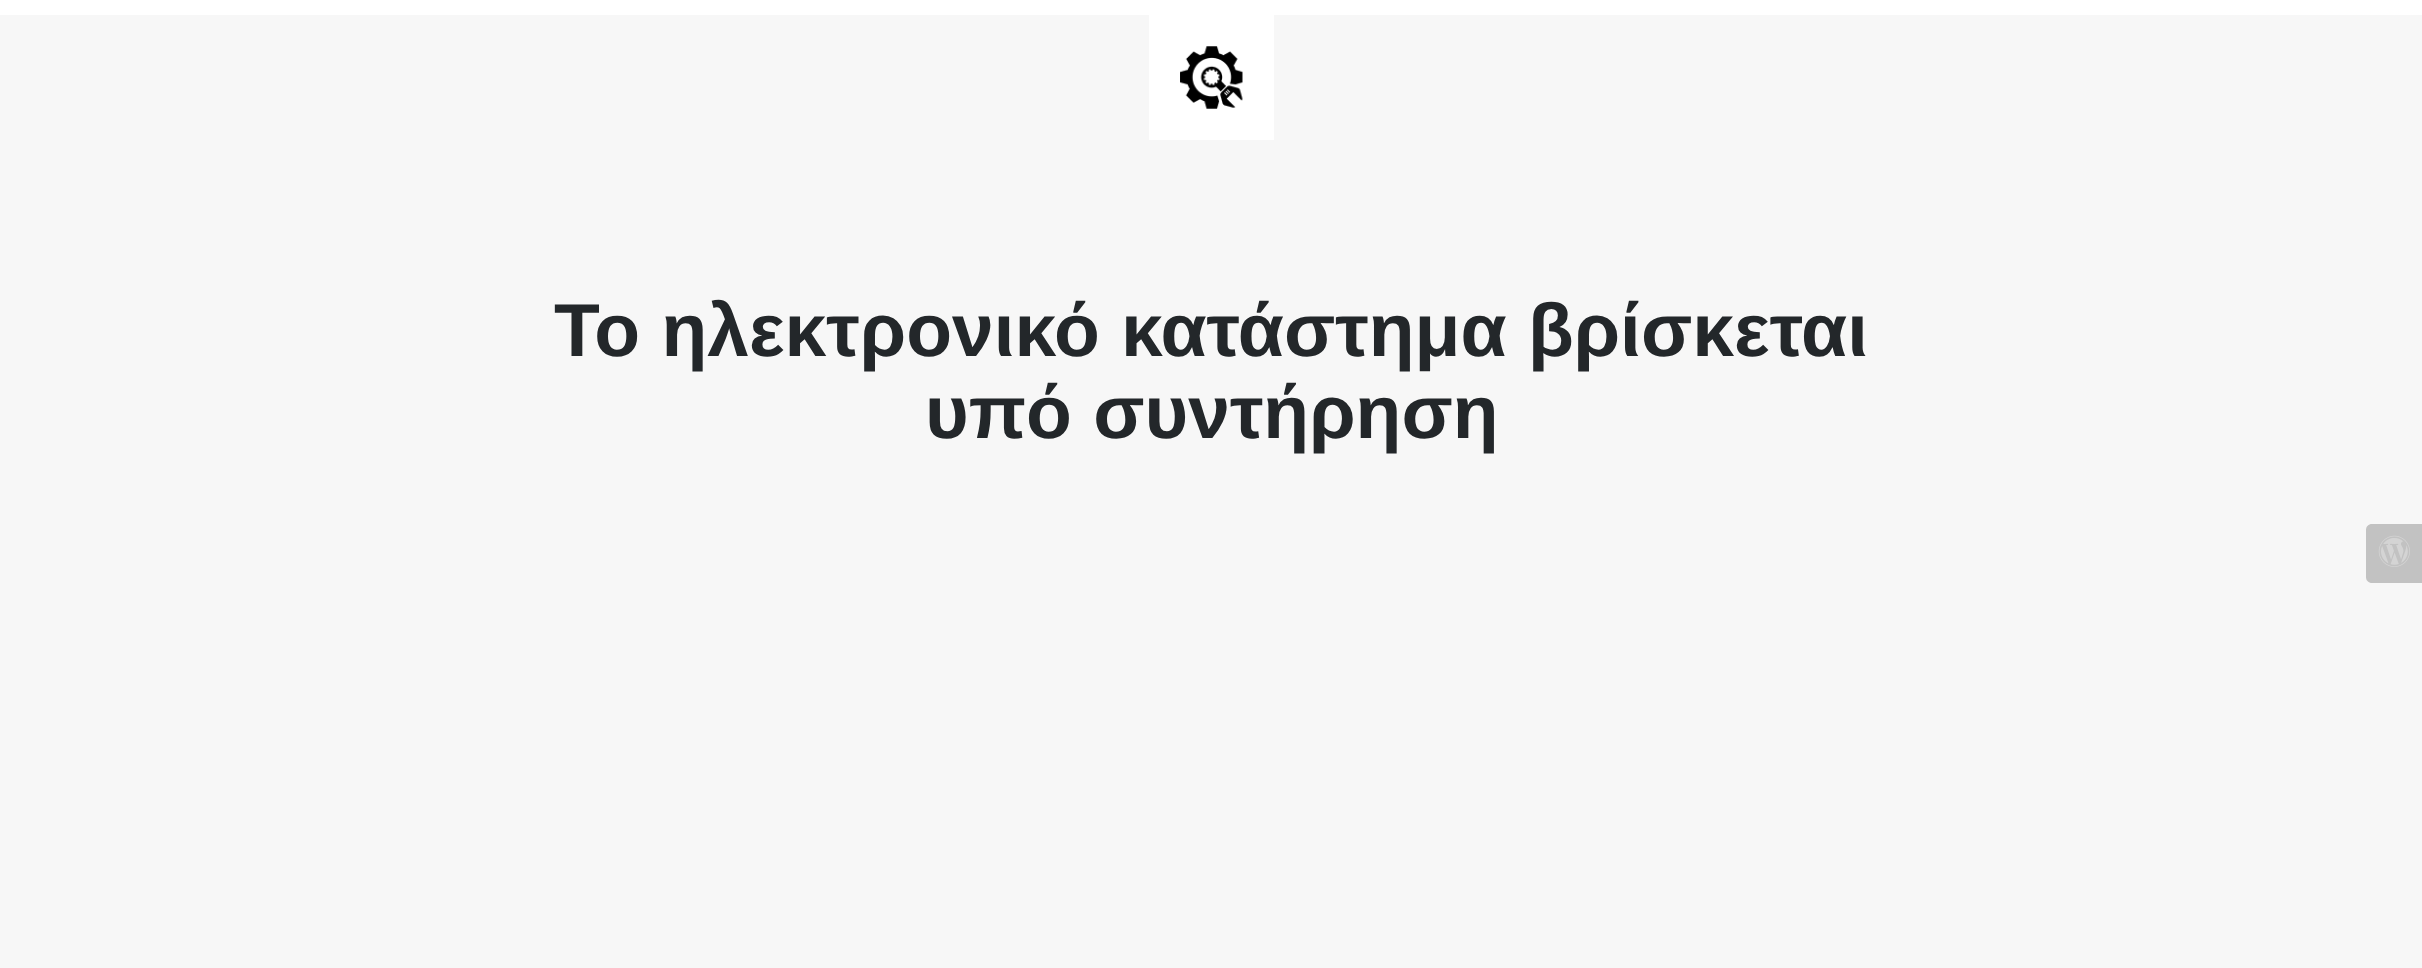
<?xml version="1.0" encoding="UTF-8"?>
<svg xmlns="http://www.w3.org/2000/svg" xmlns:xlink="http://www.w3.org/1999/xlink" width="2422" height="968">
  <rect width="100%" height="100%" fill="#f7f7f7" />
  <rect width="2422" height="15" fill="#ffffff" />
  <rect x="1149" y="15" width="125" height="125" fill="#ffffff" />
  <image x="1180" y="46" width="63" height="63" xlink:href="image1.png" />
  <path d="M 2372 524 h 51 v 59 h -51 c -3.5 0 -6 -2.5 -6 -6 v -47 c 0 -3.5 2.5 -6 6 -6 z" fill="#c2c2c2" />
  <image x="2378" y="535" width="32" height="32" xlink:href="image2.png" />
  <text x="554" y="356" word-spacing="0.5" style="font-family: Liberation Sans; font-size: 75px; font-weight: bold; fill: #23272a">Το ηλεκτρονικό κατάστημα βρίσκεται</text>
  <text x="925" y="438" word-spacing="0.5" style="font-family: Liberation Sans; font-size: 75px; font-weight: bold; fill: #23272a">υπό συντήρηση</text>
</svg>
